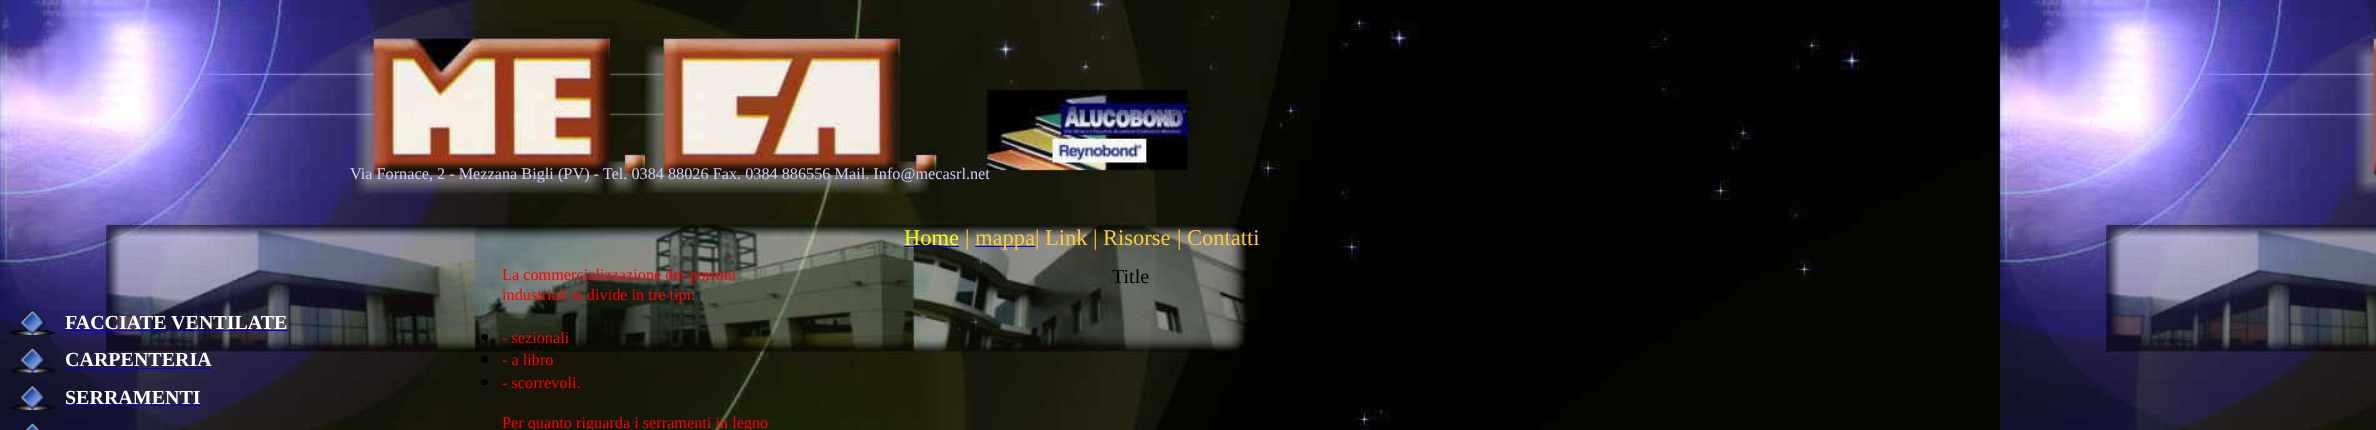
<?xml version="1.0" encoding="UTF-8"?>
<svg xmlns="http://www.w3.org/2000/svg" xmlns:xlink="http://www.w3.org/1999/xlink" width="2376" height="430">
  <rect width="100%" height="100%" fill="#ffffff" />
  <image x="0" y="0" width="2376" height="430" xlink:href="image1.png" />
  <rect x="904" y="246" width="55" height="1" fill="#0000ee" />
  <rect x="975" y="246" width="60" height="1" fill="#0000ee" />
  <image x="10" y="310" width="46" height="25" xlink:href="image2.png" />
  <rect x="65" y="330" width="223" height="1" fill="#0000ee" />
  <image x="10" y="347" width="46" height="26" xlink:href="image3.png" />
  <rect x="65" y="368" width="146" height="1" fill="#0000ee" />
  <image x="10" y="385" width="46" height="25" xlink:href="image4.png" />
  <rect x="65" y="405" width="135" height="1" fill="#0000ee" />
  <image x="25" y="422" width="16" height="8" xlink:href="image5.png" />
  <rect x="481" y="334" width="7" height="6" rx="3" fill="#000000" />
  <circle cx="484.5" cy="359.5" r="3.5" fill="#000000" />
  <rect x="481" y="379" width="7" height="6" rx="3" fill="#000000" />
  <text x="350" y="179" style="font-family: Liberation Serif; font-size: 16.25px; fill: #ccccff">Via Fornace, 2 - Mezzana Bigli (PV) - Tel. 0384 88026 Fax. 0384 886556 Mail. Info@mecasrl.net</text>
  <text x="904" y="245" style="font-family: Liberation Serif; font-size: 22.5px; fill: #ffff00">Home</text>
  <text x="965" y="245" style="font-family: Liberation Serif; font-size: 22.5px; fill: #ffcc33">|</text>
  <text x="975" y="245" style="font-family: Liberation Serif; font-size: 22.5px; fill: #ffcc33">mappa</text>
  <text x="1035" y="245" style="font-family: Liberation Serif; font-size: 22.5px; fill: #ffcc33">|</text>
  <text x="1045" y="245" style="font-family: Liberation Serif; font-size: 22.5px; fill: #ffcc33">Link</text>
  <text x="1093" y="245" style="font-family: Liberation Serif; font-size: 22.5px; fill: #ffcc33">|</text>
  <text x="1103" y="245" style="font-family: Liberation Serif; font-size: 22.5px; fill: #ffcc33">Risorse</text>
  <text x="1177" y="245" style="font-family: Liberation Serif; font-size: 22.5px; fill: #ffcc33">|</text>
  <text x="1187" y="245" style="font-family: Liberation Serif; font-size: 22.5px; fill: #ffcc33">Contatti</text>
  <text x="65" y="329" style="font-family: Liberation Serif; font-size: 20px; font-weight: bold; fill: #ffffff">FACCIATE VENTILATE</text>
  <text x="65" y="366" style="font-family: Liberation Serif; font-size: 20px; font-weight: bold; fill: #ffffff">CARPENTERIA</text>
  <text x="65" y="404" style="font-family: Liberation Serif; font-size: 20px; font-weight: bold; fill: #ffffff">SERRAMENTI</text>
  <text x="502" y="280" style="font-family: Liberation Serif; font-size: 16.25px; fill: #ff0000">La commercializzazione dei portoni</text>
  <text x="502" y="300" style="font-family: Liberation Serif; font-size: 16.25px; fill: #ff0000">industriali si divide in tre tipi:</text>
  <text x="502" y="343" style="font-family: Liberation Serif; font-size: 16.25px; fill: #ff0000">- sezionali</text>
  <text x="502" y="365" style="font-family: Liberation Serif; font-size: 16.25px; fill: #ff0000">- a libro</text>
  <text x="502" y="388" style="font-family: Liberation Serif; font-size: 16.25px; fill: #ff0000">- scorrevoli.</text>
  <text x="502" y="428" style="font-family: Liberation Serif; font-size: 16.25px; fill: #ff0000">Per quanto riguarda i serramenti in legno</text>
  <text x="1112" y="283" style="font-family: Liberation Serif; font-size: 20px; fill: #000000">Title</text>
</svg>
